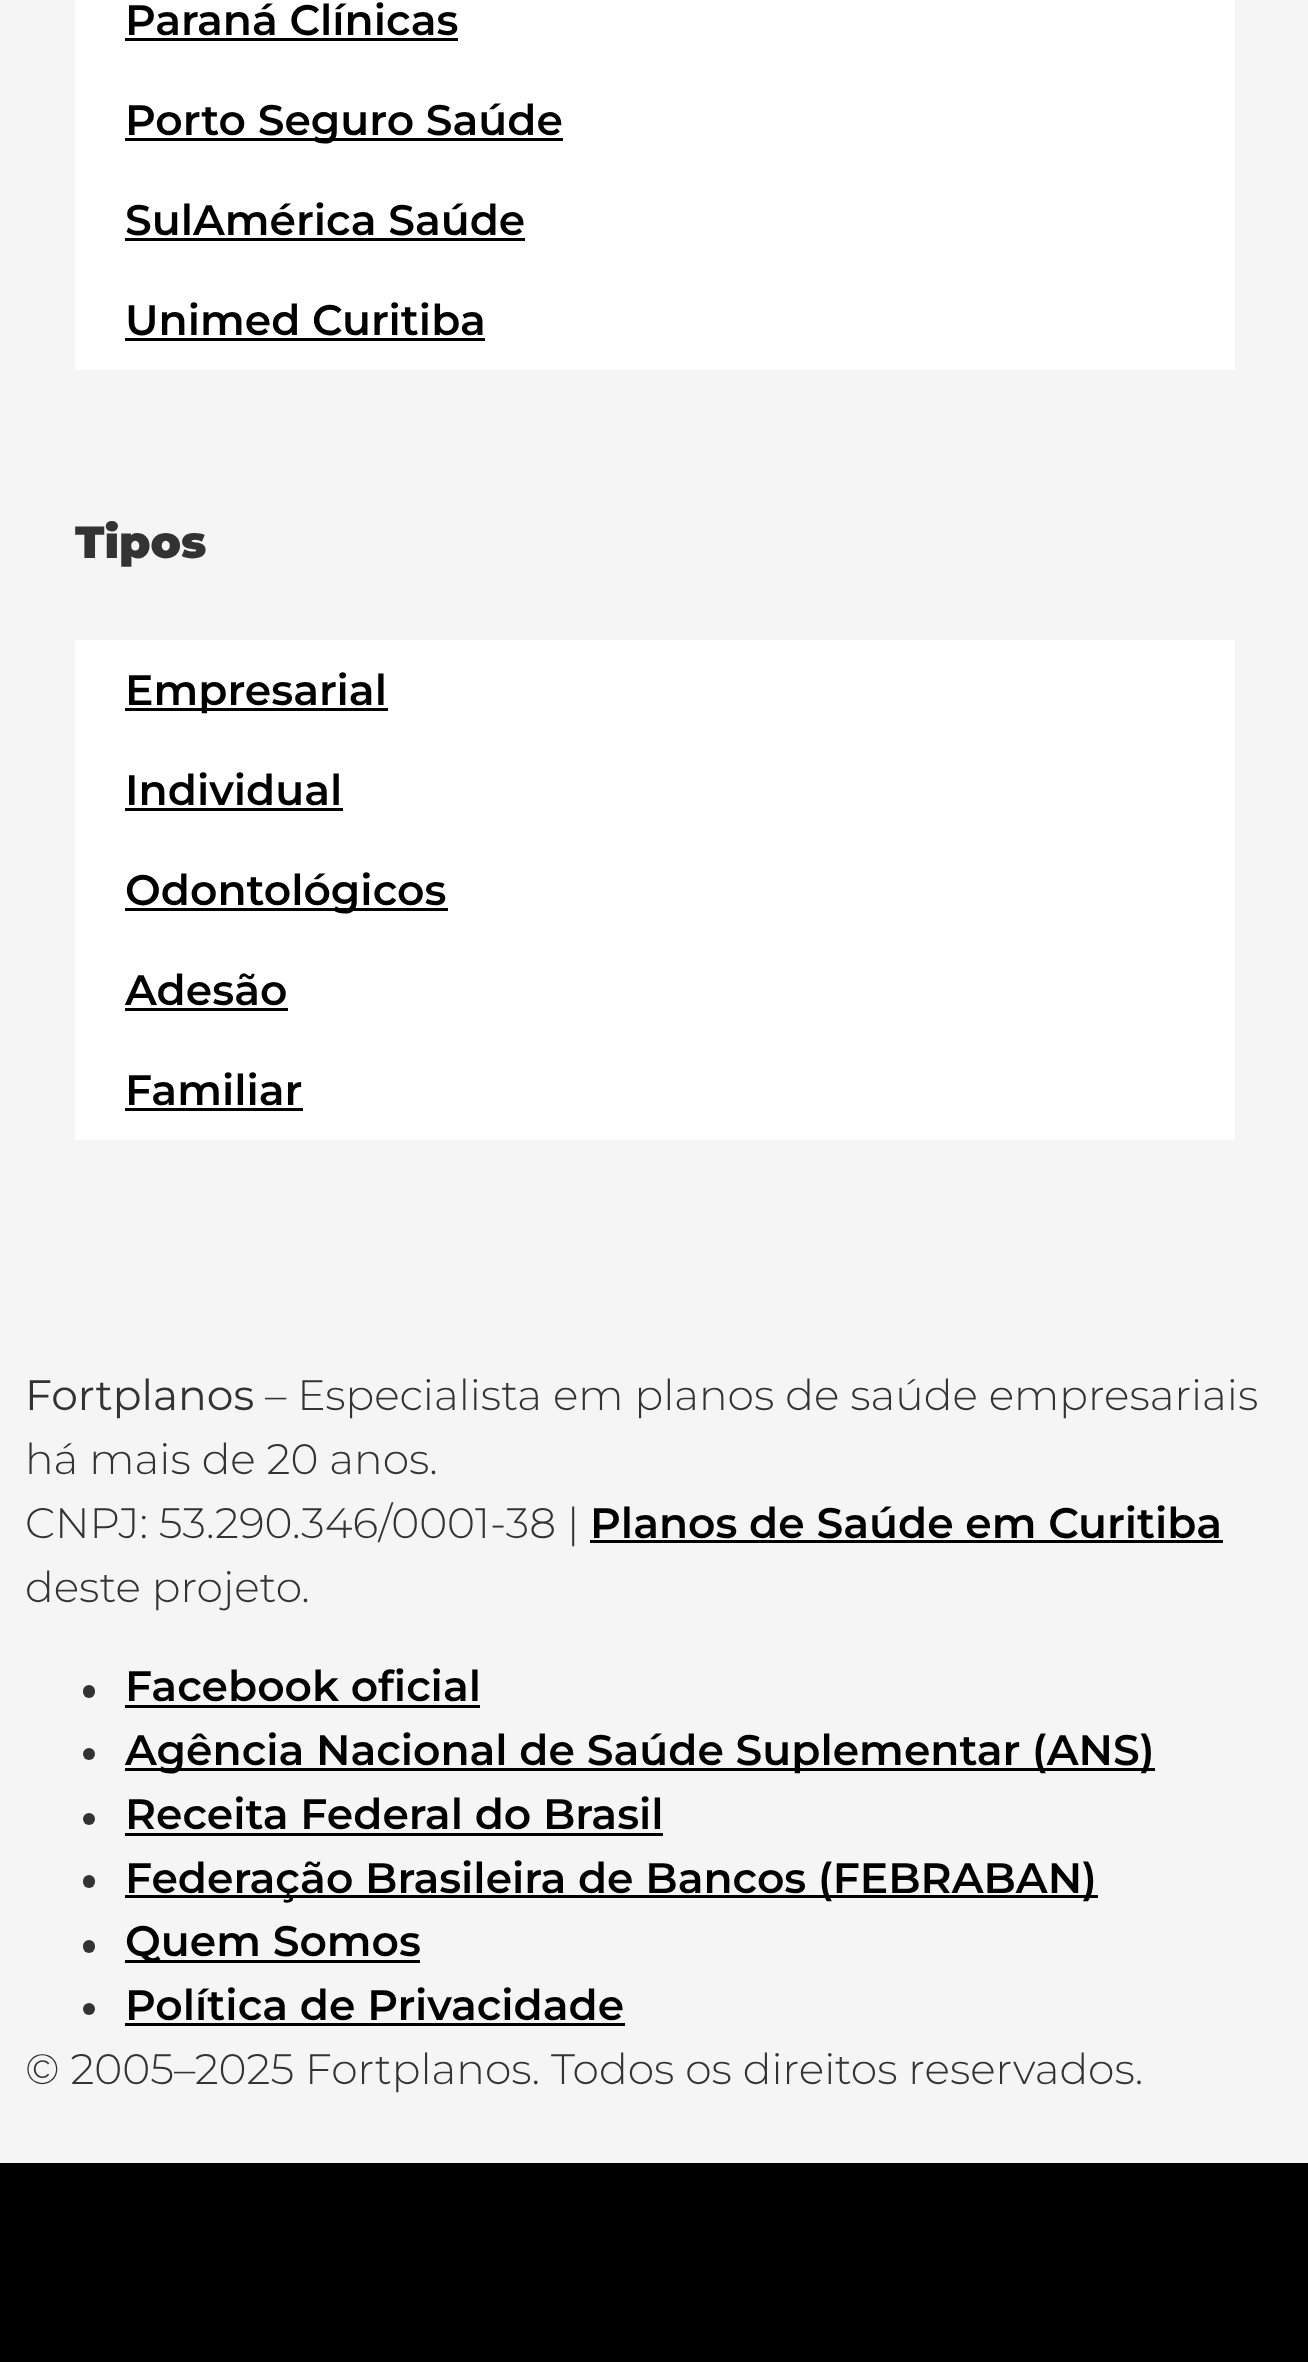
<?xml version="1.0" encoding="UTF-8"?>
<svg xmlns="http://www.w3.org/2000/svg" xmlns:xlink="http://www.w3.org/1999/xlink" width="1308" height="2362">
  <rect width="100%" height="100%" fill="#f5f5f5" />
  <rect x="75" width="1160" height="370" fill="#ffffff" />
  <rect x="125" y="38" width="333" height="3" fill="#000000" />
  <rect x="125" y="138" width="438" height="3" fill="#000000" />
  <rect x="125" y="238" width="400" height="3" fill="#000000" />
  <rect x="125" y="338" width="360" height="3" fill="#000000" />
  <rect x="75" y="640" width="1160" height="500" fill="#ffffff" />
  <rect x="125" y="708" width="263" height="3" fill="#000000" />
  <rect x="125" y="808" width="218" height="3" fill="#000000" />
  <rect x="125" y="908" width="323" height="3" fill="#000000" />
  <rect x="125" y="1008" width="163" height="3" fill="#000000" />
  <rect x="125" y="1108" width="178" height="3" fill="#000000" />
  <rect x="590" y="1540" width="633" height="3" fill="#000000" />
  <rect x="83" y="1685" width="12" height="13" rx="6" fill="#333333" />
  <rect x="125" y="1705" width="355" height="3" fill="#000000" />
  <circle cx="89" cy="1754" r="6" fill="#333333" />
  <rect x="125" y="1768" width="1030" height="3" fill="#000000" />
  <circle cx="89" cy="1819" r="6" fill="#333333" />
  <rect x="125" y="1833" width="538" height="3" fill="#000000" />
  <rect x="83" y="1875" width="12" height="13" rx="6" fill="#333333" />
  <rect x="125" y="1895" width="973" height="3" fill="#000000" />
  <rect x="83" y="1940" width="12" height="13" rx="6" fill="#333333" />
  <rect x="125" y="1960" width="295" height="3" fill="#000000" />
  <circle cx="89" cy="2009" r="6" fill="#333333" />
  <rect x="125" y="2023" width="500" height="3" fill="#000000" />
  <rect y="2163" width="1308" height="199" fill="#000000" />
  <text x="125" y="35" style="font-family: Montserrat; font-size: 42.5px; font-weight: 600; fill: #000000">Paraná Clínicas</text>
  <text x="125" y="135" style="font-family: Montserrat; font-size: 42.5px; font-weight: 600; fill: #000000">Porto Seguro Saúde</text>
  <text x="125" y="235" style="font-family: Montserrat; font-size: 42.5px; font-weight: 600; fill: #000000">SulAmérica Saúde</text>
  <text x="125" y="335" style="font-family: Montserrat; font-size: 42.5px; font-weight: 600; fill: #000000">Unimed Curitiba</text>
  <text x="75" y="558" style="font-family: Montserrat; font-size: 45px; font-weight: 900; fill: #333333">Tipos</text>
  <text x="125" y="705" style="font-family: Montserrat; font-size: 42.5px; font-weight: 600; fill: #000000">Empresarial</text>
  <text x="125" y="805" style="font-family: Montserrat; font-size: 42.5px; font-weight: 600; fill: #000000">Individual</text>
  <text x="125" y="905" style="font-family: Montserrat; font-size: 42.5px; font-weight: 600; fill: #000000">Odontológicos</text>
  <text x="125" y="1005" style="font-family: Montserrat; font-size: 42.5px; font-weight: 600; fill: #000000">Adesão</text>
  <text x="125" y="1105" style="font-family: Montserrat; font-size: 42.5px; font-weight: 600; fill: #000000">Familiar</text>
  <text x="25" y="1410" style="font-family: Montserrat; font-size: 42.5px; fill: #333333">Fortplanos</text>
  <text x="265" y="1410" style="font-family: Montserrat; font-size: 42.5px; font-weight: 300; fill: #333333">– Especialista em planos de saúde empresariais</text>
  <text x="25" y="1474" style="font-family: Montserrat; font-size: 42.5px; font-weight: 300; fill: #333333">há mais de 20 anos.</text>
  <text x="25" y="1538" style="font-family: Montserrat; font-size: 42.5px; font-weight: 300; fill: #333333">CNPJ: 53.290.346/0001-38 |</text>
  <text x="590" y="1538" style="font-family: Montserrat; font-size: 42.5px; font-weight: 600; fill: #000000">Planos de Saúde em Curitiba</text>
  <text x="25" y="1602" style="font-family: Montserrat; font-size: 42.5px; font-weight: 300; fill: #333333">deste projeto.</text>
  <text x="125" y="1701" style="font-family: Montserrat; font-size: 42.5px; font-weight: 600; fill: #000000">Facebook oficial</text>
  <text x="125" y="1765" style="font-family: Montserrat; font-size: 42.5px; font-weight: 600; fill: #000000">Agência Nacional de Saúde Suplementar (ANS)</text>
  <text x="125" y="1829" style="font-family: Montserrat; font-size: 42.5px; font-weight: 600; fill: #000000">Receita Federal do Brasil</text>
  <text x="125" y="1893" style="font-family: Montserrat; font-size: 42.5px; font-weight: 600; fill: #000000">Federação Brasileira de Bancos (FEBRABAN)</text>
  <text x="125" y="1956" style="font-family: Montserrat; font-size: 42.5px; font-weight: 600; fill: #000000">Quem Somos</text>
  <text x="125" y="2020" style="font-family: Montserrat; font-size: 42.5px; font-weight: 600; fill: #000000">Política de Privacidade</text>
  <text x="25" y="2084" style="font-family: Montserrat; font-size: 42.5px; font-weight: 300; fill: #333333">© 2005–2025 Fortplanos. Todos os direitos reservados.</text>
</svg>
